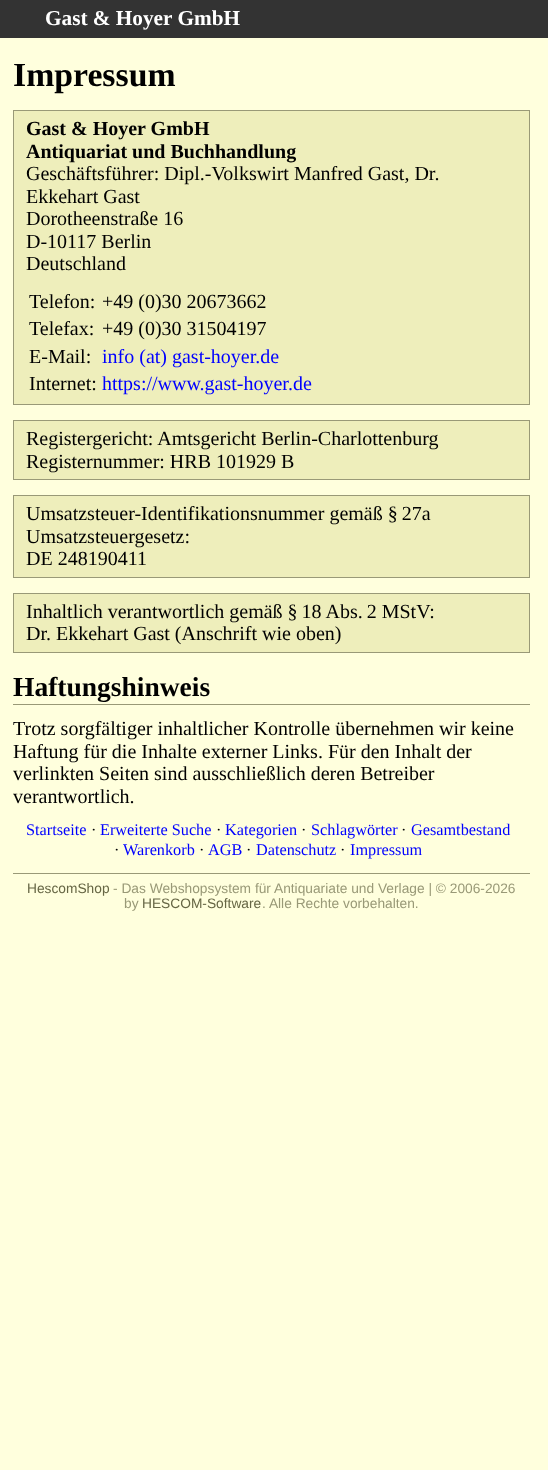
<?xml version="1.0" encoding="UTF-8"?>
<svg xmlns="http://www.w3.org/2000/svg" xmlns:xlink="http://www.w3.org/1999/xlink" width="548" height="1470">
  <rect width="100%" height="100%" fill="#ffffdd" />
  <rect width="548" height="38" fill="#333333" />
  <rect x="13.5" y="110.5" width="516" height="294" fill="#eeeebb" stroke="#999977" />
  <rect x="13.5" y="420.5" width="516" height="59" fill="#eeeebb" stroke="#999977" />
  <rect x="13.5" y="495.5" width="516" height="82" fill="#eeeebb" stroke="#999977" />
  <rect x="13.5" y="593.5" width="516" height="59" fill="#eeeebb" stroke="#999977" />
  <rect x="13" y="704" width="517" height="1" fill="#999977" />
  <rect x="13" y="873" width="517" height="1" fill="#999977" />
  <text x="45" y="25" style="font-family: Liberation Serif; font-size: 21.25px; font-weight: bold; fill: #ffffff">Gast &amp; Hoyer GmbH</text>
  <text x="13" y="86" style="font-family: Liberation Serif; font-size: 33.75px; font-weight: bold; fill: #000000">Impressum</text>
  <text x="26" y="135" style="font-family: Liberation Serif; font-size: 20px; font-weight: bold; fill: #000000">Gast &amp; Hoyer GmbH</text>
  <text x="26" y="158" style="font-family: Liberation Serif; font-size: 20px; font-weight: bold; fill: #000000">Antiquariat und Buchhandlung</text>
  <text x="26" y="180" style="font-family: Liberation Serif; font-size: 20px; fill: #000000">Geschäftsführer: Dipl.-Volkswirt Manfred Gast, Dr.</text>
  <text x="26" y="203" style="font-family: Liberation Serif; font-size: 20px; fill: #000000">Ekkehart Gast</text>
  <text x="26" y="225" style="font-family: Liberation Serif; font-size: 20px; fill: #000000">Dorotheenstraße 16</text>
  <text x="26" y="248" style="font-family: Liberation Serif; font-size: 20px; fill: #000000">D-10117 Berlin</text>
  <text x="26" y="270" style="font-family: Liberation Serif; font-size: 20px; fill: #000000">Deutschland</text>
  <text x="29" y="308" style="font-family: Liberation Serif; font-size: 20px; fill: #000000">Telefon:</text>
  <text x="102" y="308" style="font-family: Liberation Serif; font-size: 20px; fill: #000000">+49 (0)30 20673662</text>
  <text x="29" y="335" style="font-family: Liberation Serif; font-size: 20px; fill: #000000">Telefax:</text>
  <text x="102" y="335" style="font-family: Liberation Serif; font-size: 20px; fill: #000000">+49 (0)30 31504197</text>
  <text x="29" y="363" style="font-family: Liberation Serif; font-size: 20px; fill: #000000">E-Mail:</text>
  <text x="102" y="363" style="font-family: Liberation Serif; font-size: 20px; fill: #0000ff">info (at) gast-hoyer.de</text>
  <text x="29" y="390" style="font-family: Liberation Serif; font-size: 20px; fill: #000000">Internet:</text>
  <text x="102" y="390" style="font-family: Liberation Serif; font-size: 20px; fill: #0000ff">https://www.gast-hoyer.de</text>
  <text x="26" y="445" style="font-family: Liberation Serif; font-size: 20px; fill: #000000">Registergericht: Amtsgericht Berlin-Charlottenburg</text>
  <text x="26" y="468" style="font-family: Liberation Serif; font-size: 20px; fill: #000000">Registernummer: HRB 101929 B</text>
  <text x="26" y="520" style="font-family: Liberation Serif; font-size: 20px; fill: #000000">Umsatzsteuer-Identifikationsnummer gemäß § 27a</text>
  <text x="26" y="543" style="font-family: Liberation Serif; font-size: 20px; fill: #000000">Umsatzsteuergesetz:</text>
  <text x="26" y="565" style="font-family: Liberation Serif; font-size: 20px; fill: #000000">DE 248190411</text>
  <text x="26" y="618" style="font-family: Liberation Serif; font-size: 20px; fill: #000000">Inhaltlich verantwortlich gemäß § 18 Abs. 2 MStV:</text>
  <text x="26" y="640" style="font-family: Liberation Serif; font-size: 20px; fill: #000000">Dr. Ekkehart Gast (Anschrift wie oben)</text>
  <text x="13" y="696" style="font-family: Liberation Serif; font-size: 27.5px; font-weight: bold; fill: #000000">Haftungshinweis</text>
  <text x="13" y="735" style="font-family: Liberation Serif; font-size: 20px; fill: #000000">Trotz sorgfältiger inhaltlicher Kontrolle übernehmen wir keine</text>
  <text x="13" y="758" style="font-family: Liberation Serif; font-size: 20px; fill: #000000">Haftung für die Inhalte externer Links. Für den Inhalt der</text>
  <text x="13" y="780" style="font-family: Liberation Serif; font-size: 20px; fill: #000000">verlinkten Seiten sind ausschließlich deren Betreiber</text>
  <text x="13" y="803" style="font-family: Liberation Serif; font-size: 20px; fill: #000000">verantwortlich.</text>
  <text x="26" y="835" style="font-family: Liberation Serif; font-size: 16.25px; fill: #0000ff">Startseite</text>
  <text x="91" y="835" style="font-family: Liberation Serif; font-size: 16.25px; fill: #000000">·</text>
  <text x="100" y="835" style="font-family: Liberation Serif; font-size: 16.25px; fill: #0000ff">Erweiterte Suche</text>
  <text x="216" y="835" style="font-family: Liberation Serif; font-size: 16.25px; fill: #000000">·</text>
  <text x="225" y="835" style="font-family: Liberation Serif; font-size: 16.25px; fill: #0000ff">Kategorien</text>
  <text x="301" y="835" style="font-family: Liberation Serif; font-size: 16.25px; fill: #000000">·</text>
  <text x="311" y="835" style="font-family: Liberation Serif; font-size: 16.25px; fill: #0000ff">Schlagwörter</text>
  <text x="401" y="835" style="font-family: Liberation Serif; font-size: 16.25px; fill: #000000">·</text>
  <text x="411" y="835" style="font-family: Liberation Serif; font-size: 16.25px; fill: #0000ff">Gesamtbestand</text>
  <text x="114" y="855" style="font-family: Liberation Serif; font-size: 16.25px; fill: #000000">·</text>
  <text x="123" y="855" style="font-family: Liberation Serif; font-size: 16.25px; fill: #0000ff">Warenkorb</text>
  <text x="199" y="855" style="font-family: Liberation Serif; font-size: 16.25px; fill: #000000">·</text>
  <text x="208" y="855" style="font-family: Liberation Serif; font-size: 16.25px; fill: #0000ff">AGB</text>
  <text x="246" y="855" style="font-family: Liberation Serif; font-size: 16.25px; fill: #000000">·</text>
  <text x="256" y="855" style="font-family: Liberation Serif; font-size: 16.25px; fill: #0000ff">Datenschutz</text>
  <text x="340" y="855" style="font-family: Liberation Serif; font-size: 16.25px; fill: #000000">·</text>
  <text x="350" y="855" style="font-family: Liberation Serif; font-size: 16.25px; fill: #0000ff">Impressum</text>
  <text x="27" y="893" style="font-family: Liberation Sans; font-size: 13.75px; fill: #666644">HescomShop</text>
  <text x="113" y="893" style="font-family: Liberation Sans; font-size: 13.75px; fill: #999977">- Das Webshopsystem für Antiquariate und Verlage | © 2006-2026</text>
  <text x="124" y="908" style="font-family: Liberation Sans; font-size: 13.75px; fill: #999977">by</text>
  <text x="142" y="908" style="font-family: Liberation Sans; font-size: 13.75px; fill: #666644">HESCOM-Software</text>
  <text x="262" y="908" style="font-family: Liberation Sans; font-size: 13.75px; fill: #999977">. Alle Rechte vorbehalten.</text>
</svg>
